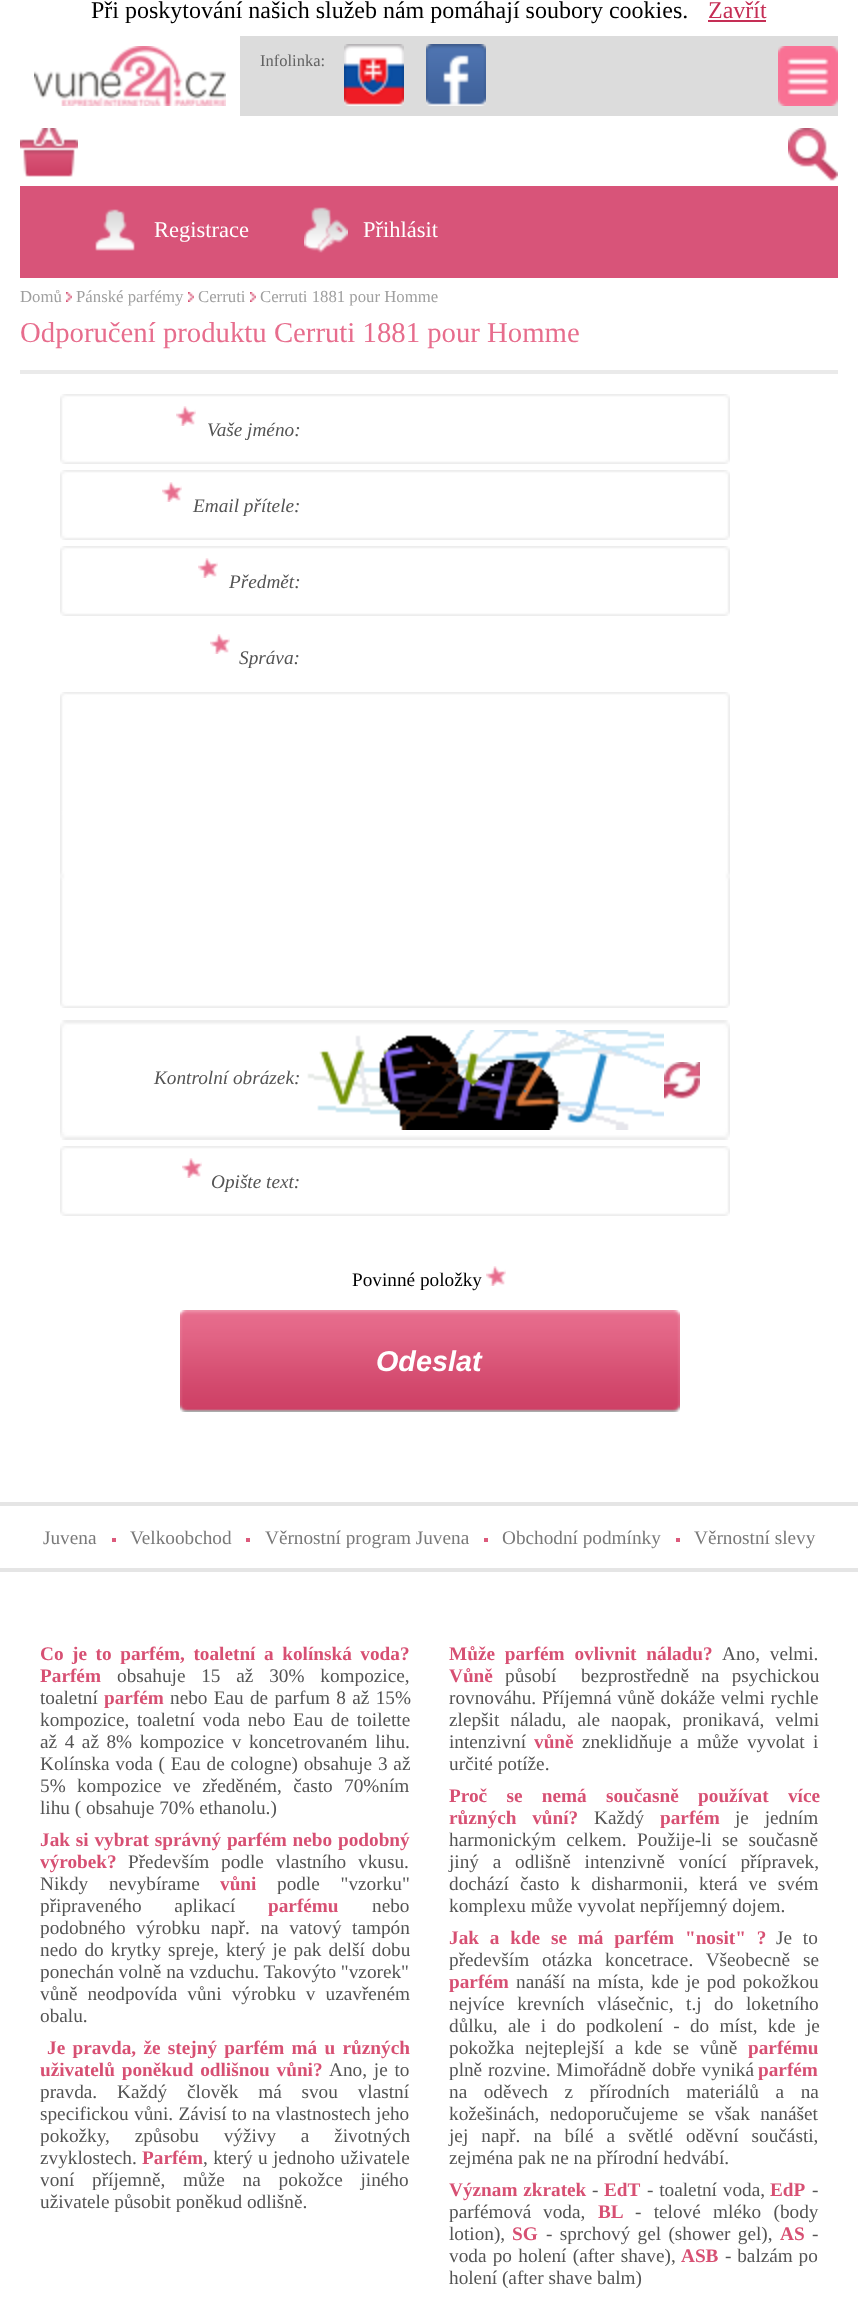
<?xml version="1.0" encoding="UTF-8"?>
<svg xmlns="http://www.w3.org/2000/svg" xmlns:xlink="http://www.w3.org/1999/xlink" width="858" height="2307">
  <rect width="100%" height="100%" fill="#ffffff" />
  <rect x="708" y="20" width="58" height="2" fill="#c52e55" />
  <rect x="240" y="36" width="598" height="80" fill="#dcdcdc" />
  <image x="34" y="46" width="192" height="60" xlink:href="image1.png" />
  <image x="344" y="44" width="60" height="62" xlink:href="image2.png" />
  <image x="426" y="44" width="60" height="62" xlink:href="image3.png" />
  <image x="778" y="46" width="60" height="60" xlink:href="image4.png" />
  <image x="20" y="128" width="58" height="49" xlink:href="image5.png" />
  <image x="788" y="128" width="50" height="53" xlink:href="image6.png" />
  <rect x="20" y="186" width="818" height="92" fill="#d85479" />
  <image x="95" y="209" width="40" height="42" xlink:href="image7.png" />
  <image x="304" y="207" width="44" height="46" xlink:href="image8.png" />
  <image x="66" y="292" width="6" height="10" xlink:href="image9.png" />
  <image x="188" y="292" width="6" height="10" xlink:href="image9.png" />
  <image x="250" y="292" width="6" height="10" xlink:href="image9.png" />
  <rect x="20" y="370" width="818" height="4" fill="#eaeaea" />
  <image x="60" y="394" width="670" height="70" xlink:href="image10.png" />
  <image x="176" y="406" width="20" height="20" xlink:href="image11.png" />
  <image x="60" y="470" width="670" height="70" xlink:href="image10.png" />
  <image x="162" y="482" width="20" height="20" xlink:href="image11.png" />
  <image x="60" y="546" width="670" height="70" xlink:href="image10.png" />
  <image x="198" y="558" width="20" height="20" xlink:href="image11.png" />
  <image x="210" y="634" width="20" height="20" xlink:href="image11.png" />
  <image x="60" y="692" width="670" height="316" xlink:href="image12.png" />
  <image x="60" y="1020" width="670" height="120" xlink:href="image13.png" />
  <image x="307" y="1030" width="357" height="100" xlink:href="image14.png" />
  <image x="664" y="1062" width="36" height="37" xlink:href="image15.png" />
  <image x="60" y="1146" width="670" height="70" xlink:href="image10.png" />
  <image x="182" y="1158" width="20" height="20" xlink:href="image11.png" />
  <image x="486" y="1266" width="20" height="20" xlink:href="image11.png" />
  <image x="180" y="1310" width="500" height="102" xlink:href="image16.png" />
  <image x="0" y="1502" width="858" height="70" xlink:href="image17.png" />
  <rect x="112" y="1538" width="4" height="4" fill="#dc5a7c" />
  <rect x="246" y="1538" width="4" height="4" fill="#dc5a7c" />
  <rect x="484" y="1538" width="4" height="4" fill="#dc5a7c" />
  <rect x="676" y="1538" width="4" height="4" fill="#dc5a7c" />
  <text x="91" y="18" style="font-family: Liberation Serif; font-size: 24px; fill: #000000">Při poskytování našich služeb nám pomáhají soubory cookies.</text>
  <text x="708" y="18" style="font-family: Liberation Serif; font-size: 24px; fill: #c52e55">Zavřít</text>
  <text x="260" y="66" style="font-family: Liberation Serif; font-size: 16.5px; fill: #626262">Infolinka:</text>
  <text x="154" y="237" style="font-family: Liberation Serif; font-size: 22.5px; fill: #ffffff">Registrace</text>
  <text x="363" y="237" style="font-family: Liberation Serif; font-size: 22.5px; fill: #ffffff">Přihlásit</text>
  <text x="20" y="302" style="font-family: Liberation Serif; font-size: 16.75px; fill: #9f9f9f">Domů</text>
  <text x="76" y="302" style="font-family: Liberation Serif; font-size: 16.75px; fill: #9f9f9f">Pánské parfémy</text>
  <text x="198" y="302" style="font-family: Liberation Serif; font-size: 16.75px; fill: #9f9f9f">Cerruti</text>
  <text x="260" y="302" style="font-family: Liberation Serif; font-size: 16.75px; fill: #9f9f9f">Cerruti 1881 pour Homme</text>
  <text x="20" y="342" style="font-family: Liberation Serif; font-size: 28.75px; fill: #e76d8d">Odporučení produktu Cerruti 1881 pour Homme</text>
  <text x="207" y="436" style="font-family: Liberation Serif; font-size: 19.25px; font-style: italic; fill: #545454">Vaše jméno:</text>
  <text x="193" y="512" style="font-family: Liberation Serif; font-size: 19.25px; font-style: italic; fill: #545454">Email přítele:</text>
  <text x="229" y="588" style="font-family: Liberation Serif; font-size: 19.25px; font-style: italic; fill: #545454">Předmět:</text>
  <text x="239" y="664" style="font-family: Liberation Serif; font-size: 19.25px; font-style: italic; fill: #545454">Správa:</text>
  <text x="154" y="1084" style="font-family: Liberation Serif; font-size: 19.25px; font-style: italic; fill: #545454">Kontrolní obrázek:</text>
  <text x="211" y="1188" style="font-family: Liberation Serif; font-size: 19.25px; font-style: italic; fill: #545454">Opište text:</text>
  <text x="352" y="1286" style="font-family: Liberation Serif; font-size: 19.25px; fill: #000000">Povinné položky</text>
  <text x="376" y="1371" style="font-family: Liberation Sans; font-size: 28.75px; font-weight: bold; font-style: italic; fill: #ffffff">Odeslat</text>
  <text x="43" y="1544" style="font-family: Liberation Serif; font-size: 19.25px; fill: #797979">Juvena</text>
  <text x="130" y="1544" style="font-family: Liberation Serif; font-size: 19.25px; fill: #797979">Velkoobchod</text>
  <text x="265" y="1544" style="font-family: Liberation Serif; font-size: 19.25px; fill: #797979">Věrnostní program Juvena</text>
  <text x="502" y="1544" style="font-family: Liberation Serif; font-size: 19.25px; fill: #797979">Obchodní podmínky</text>
  <text x="694" y="1544" style="font-family: Liberation Serif; font-size: 19.25px; fill: #797979">Věrnostní slevy</text>
  <text x="40" y="1660" word-spacing="3.75" style="font-family: Liberation Serif; font-size: 19.25px; font-weight: bold; fill: #d75073">Co je to parfém, toaletní a kolínská voda?</text>
  <text x="40" y="1682" style="font-family: Liberation Serif; font-size: 19.25px; font-weight: bold; fill: #d75073">Parfém</text>
  <text x="117" y="1682" word-spacing="11" style="font-family: Liberation Serif; font-size: 19.25px; fill: #545454">obsahuje 15 až 30% kompozice,</text>
  <text x="40" y="1704" style="font-family: Liberation Serif; font-size: 19.25px; fill: #545454">toaletní</text>
  <text x="104" y="1704" style="font-family: Liberation Serif; font-size: 19.25px; font-weight: bold; fill: #d75073">parfém</text>
  <text x="170" y="1704" word-spacing="1.5" style="font-family: Liberation Serif; font-size: 19.25px; fill: #545454">nebo Eau de parfum 8 až 15%</text>
  <text x="40" y="1726" word-spacing="3" style="font-family: Liberation Serif; font-size: 19.25px; fill: #545454">kompozice, toaletní voda nebo Eau de toilette</text>
  <text x="40" y="1748" word-spacing="2.75" style="font-family: Liberation Serif; font-size: 19.25px; fill: #545454">až 4 až 8% kompozice v koncetrovaném lihu.</text>
  <text x="40" y="1770" word-spacing="1" style="font-family: Liberation Serif; font-size: 19.25px; fill: #545454">Kolínska voda ( Eau de cologne) obsahuje 3 až</text>
  <text x="40" y="1792" word-spacing="6.5" style="font-family: Liberation Serif; font-size: 19.25px; fill: #545454">5% kompozice ve zředěném, často 70%ním</text>
  <text x="40" y="1814" style="font-family: Liberation Serif; font-size: 19.25px; fill: #545454">lihu ( obsahuje 70% ethanolu.)</text>
  <text x="40" y="1846" word-spacing="1" style="font-family: Liberation Serif; font-size: 19.25px; font-weight: bold; fill: #d75073">Jak si vybrat správný parfém nebo podobný</text>
  <text x="40" y="1868" style="font-family: Liberation Serif; font-size: 19.25px; font-weight: bold; fill: #d75073">výrobek?</text>
  <text x="128" y="1868" word-spacing="7" style="font-family: Liberation Serif; font-size: 19.25px; fill: #545454">Především podle vlastního vkusu.</text>
  <text x="40" y="1890" word-spacing="16" style="font-family: Liberation Serif; font-size: 19.25px; fill: #545454">Nikdy nevybírame</text>
  <text x="220" y="1890" style="font-family: Liberation Serif; font-size: 19.25px; font-weight: bold; fill: #d75073">vůni</text>
  <text x="277" y="1890" word-spacing="16" style="font-family: Liberation Serif; font-size: 19.25px; fill: #545454">podle "vzorku"</text>
  <text x="40" y="1912" word-spacing="28" style="font-family: Liberation Serif; font-size: 19.25px; fill: #545454">připraveného aplikací</text>
  <text x="268" y="1912" style="font-family: Liberation Serif; font-size: 19.25px; font-weight: bold; fill: #d75073">parfému</text>
  <text x="372" y="1912" style="font-family: Liberation Serif; font-size: 19.25px; fill: #545454">nebo</text>
  <text x="40" y="1934" word-spacing="5.75" style="font-family: Liberation Serif; font-size: 19.25px; fill: #545454">podobného výrobku např. na vatový tampón</text>
  <text x="40" y="1956" word-spacing="2.25" style="font-family: Liberation Serif; font-size: 19.25px; fill: #545454">nedo do krytky spreje, který je pak delší dobu</text>
  <text x="40" y="1978" style="font-family: Liberation Serif; font-size: 19.25px; fill: #545454">ponechán volně na vzduchu. Takovýto "vzorek"</text>
  <text x="40" y="2000" word-spacing="5.25" style="font-family: Liberation Serif; font-size: 19.25px; fill: #545454">vůně neodpovída vůni výrobku v uzavřeném</text>
  <text x="40" y="2022" style="font-family: Liberation Serif; font-size: 19.25px; fill: #545454">obalu.</text>
  <text x="47" y="2054" word-spacing="2.5" style="font-family: Liberation Serif; font-size: 19.25px; font-weight: bold; fill: #d75073">Je pravda, že stejný parfém má u různých</text>
  <text x="40" y="2076" word-spacing="2" style="font-family: Liberation Serif; font-size: 19.25px; font-weight: bold; fill: #d75073">uživatelů poněkud odlišnou vůni?</text>
  <text x="329" y="2076" word-spacing="2" style="font-family: Liberation Serif; font-size: 19.25px; fill: #545454">Ano, je to</text>
  <text x="40" y="2098" word-spacing="15" style="font-family: Liberation Serif; font-size: 19.25px; fill: #545454">pravda. Každý člověk má svou vlastní</text>
  <text x="40" y="2120" word-spacing="0.5" style="font-family: Liberation Serif; font-size: 19.25px; fill: #545454">specifickou vůni. Závisí to na vlastnostech jeho</text>
  <text x="40" y="2142" word-spacing="20" style="font-family: Liberation Serif; font-size: 19.25px; fill: #545454">pokožky, způsobu výživy a životných</text>
  <text x="40" y="2164" style="font-family: Liberation Serif; font-size: 19.25px; fill: #545454">zvyklostech.</text>
  <text x="142" y="2164" style="font-family: Liberation Serif; font-size: 19.25px; font-weight: bold; fill: #d75073">Parfém</text>
  <text x="203" y="2164" word-spacing="0.5" style="font-family: Liberation Serif; font-size: 19.25px; fill: #545454">, který u jednoho uživatele</text>
  <text x="40" y="2186" word-spacing="13" style="font-family: Liberation Serif; font-size: 19.25px; fill: #545454">voní příjemně, může na pokožce jiného</text>
  <text x="40" y="2208" style="font-family: Liberation Serif; font-size: 19.25px; fill: #545454">uživatele působit poněkud odlišně.</text>
  <text x="449" y="1660" word-spacing="5" style="font-family: Liberation Serif; font-size: 19.25px; font-weight: bold; fill: #d75073">Může parfém ovlivnit náladu?</text>
  <text x="722" y="1660" word-spacing="5" style="font-family: Liberation Serif; font-size: 19.25px; fill: #545454">Ano, velmi.</text>
  <text x="449" y="1682" style="font-family: Liberation Serif; font-size: 19.25px; font-weight: bold; fill: #d75073">Vůně</text>
  <text x="505" y="1682" word-spacing="7.5" style="font-family: Liberation Serif; font-size: 19.25px; fill: #545454" xml:space="preserve">působí  bezprostředně na psychickou</text>
  <text x="449" y="1704" word-spacing="1" style="font-family: Liberation Serif; font-size: 19.25px; fill: #545454">rovnováhu. Příjemná vůně dokáže velmi rychle</text>
  <text x="449" y="1726" word-spacing="6.25" style="font-family: Liberation Serif; font-size: 19.25px; fill: #545454">zlepšit náladu, ale naopak, pronikavá, velmi</text>
  <text x="449" y="1748" style="font-family: Liberation Serif; font-size: 19.25px; fill: #545454">intenzivní</text>
  <text x="534" y="1748" style="font-family: Liberation Serif; font-size: 19.25px; font-weight: bold; fill: #d75073">vůně</text>
  <text x="582" y="1748" word-spacing="3.5" style="font-family: Liberation Serif; font-size: 19.25px; fill: #545454">zneklidňuje a může vyvolat i</text>
  <text x="449" y="1770" style="font-family: Liberation Serif; font-size: 19.25px; fill: #545454">určité potíže.</text>
  <text x="449" y="1802" word-spacing="14.5" style="font-family: Liberation Serif; font-size: 19.25px; font-weight: bold; fill: #d75073">Proč se nemá současně používat více</text>
  <text x="449" y="1824" word-spacing="11" style="font-family: Liberation Serif; font-size: 19.25px; font-weight: bold; fill: #d75073">různých vůní?</text>
  <text x="594" y="1824" style="font-family: Liberation Serif; font-size: 19.25px; fill: #545454">Každý</text>
  <text x="660" y="1824" style="font-family: Liberation Serif; font-size: 19.25px; font-weight: bold; fill: #d75073">parfém</text>
  <text x="735" y="1824" word-spacing="11" style="font-family: Liberation Serif; font-size: 19.25px; fill: #545454">je jedním</text>
  <text x="449" y="1846" word-spacing="5.5" style="font-family: Liberation Serif; font-size: 19.25px; fill: #545454">harmonickým celkem. Použije-li se současně</text>
  <text x="449" y="1868" word-spacing="9" style="font-family: Liberation Serif; font-size: 19.25px; fill: #545454">jiný a odlišně intenzivně vonící přípravek,</text>
  <text x="449" y="1890" word-spacing="6.25" style="font-family: Liberation Serif; font-size: 19.25px; fill: #545454">dochází často k disharmonii, která ve svém</text>
  <text x="449" y="1912" style="font-family: Liberation Serif; font-size: 19.25px; fill: #545454">komplexu může vyvolat nepříjemný dojem.</text>
  <text x="449" y="1944" word-spacing="6" style="font-family: Liberation Serif; font-size: 19.25px; font-weight: bold; fill: #d75073">Jak a kde se má parfém "nosit" ?</text>
  <text x="776" y="1944" word-spacing="6" style="font-family: Liberation Serif; font-size: 19.25px; fill: #545454">Je to</text>
  <text x="449" y="1966" word-spacing="8" style="font-family: Liberation Serif; font-size: 19.25px; fill: #545454">především otázka koncetrace. Všeobecně se</text>
  <text x="449" y="1988" style="font-family: Liberation Serif; font-size: 19.25px; font-weight: bold; fill: #d75073">parfém</text>
  <text x="516" y="1988" word-spacing="2.25" style="font-family: Liberation Serif; font-size: 19.25px; fill: #545454">nanáší na místa, kde je pod pokožkou</text>
  <text x="449" y="2010" word-spacing="7.75" style="font-family: Liberation Serif; font-size: 19.25px; fill: #545454">nejvíce krevních vlásečnic, t.j do loketního</text>
  <text x="449" y="2032" word-spacing="5.5" style="font-family: Liberation Serif; font-size: 19.25px; fill: #545454">důlku, ale i do podkolení - do míst, kde je</text>
  <text x="449" y="2054" word-spacing="6" style="font-family: Liberation Serif; font-size: 19.25px; fill: #545454">pokožka nejteplejší a kde se vůně</text>
  <text x="748" y="2054" style="font-family: Liberation Serif; font-size: 19.25px; font-weight: bold; fill: #d75073">parfému</text>
  <text x="449" y="2076" word-spacing="1" style="font-family: Liberation Serif; font-size: 19.25px; fill: #545454">plně rozvine. Mimořádně dobře vyniká</text>
  <text x="758" y="2076" style="font-family: Liberation Serif; font-size: 19.25px; font-weight: bold; fill: #d75073">parfém</text>
  <text x="449" y="2098" word-spacing="11.75" style="font-family: Liberation Serif; font-size: 19.25px; fill: #545454">na oděvech z přírodních materiálů a na</text>
  <text x="449" y="2120" word-spacing="5.5" style="font-family: Liberation Serif; font-size: 19.25px; fill: #545454">kožešinách, nedoporučujeme se však nanášet</text>
  <text x="449" y="2142" word-spacing="8.25" style="font-family: Liberation Serif; font-size: 19.25px; fill: #545454">jej např. na bílé a světlé oděvní součásti,</text>
  <text x="449" y="2164" style="font-family: Liberation Serif; font-size: 19.25px; fill: #545454">zejména pak ne na přírodní hedvábí.</text>
  <text x="449" y="2196" word-spacing="1" style="font-family: Liberation Serif; font-size: 19.25px; font-weight: bold; fill: #d75073">Význam zkratek</text>
  <text x="592" y="2196" style="font-family: Liberation Serif; font-size: 19.25px; fill: #545454">-</text>
  <text x="604" y="2196" style="font-family: Liberation Serif; font-size: 19.25px; font-weight: bold; fill: #d75073">EdT</text>
  <text x="647" y="2196" word-spacing="1" style="font-family: Liberation Serif; font-size: 19.25px; fill: #545454">- toaletní voda,</text>
  <text x="770" y="2196" style="font-family: Liberation Serif; font-size: 19.25px; font-weight: bold; fill: #d75073">EdP</text>
  <text x="812" y="2196" style="font-family: Liberation Serif; font-size: 19.25px; fill: #545454">-</text>
  <text x="449" y="2218" word-spacing="7" style="font-family: Liberation Serif; font-size: 19.25px; fill: #545454">parfémová voda,</text>
  <text x="598" y="2218" style="font-family: Liberation Serif; font-size: 19.25px; font-weight: bold; fill: #d75073">BL</text>
  <text x="635" y="2218" word-spacing="7.5" style="font-family: Liberation Serif; font-size: 19.25px; fill: #545454">- telové mléko (body</text>
  <text x="449" y="2240" style="font-family: Liberation Serif; font-size: 19.25px; fill: #545454">lotion),</text>
  <text x="512" y="2240" style="font-family: Liberation Serif; font-size: 19.25px; font-weight: bold; fill: #d75073">SG</text>
  <text x="546" y="2240" word-spacing="2.5" style="font-family: Liberation Serif; font-size: 19.25px; fill: #545454">- sprchový gel (shower gel),</text>
  <text x="780" y="2240" style="font-family: Liberation Serif; font-size: 19.25px; font-weight: bold; fill: #d75073">AS</text>
  <text x="812" y="2240" style="font-family: Liberation Serif; font-size: 19.25px; fill: #545454">-</text>
  <text x="449" y="2262" word-spacing="1.5" style="font-family: Liberation Serif; font-size: 19.25px; fill: #545454">voda po holení (after shave),</text>
  <text x="681" y="2262" style="font-family: Liberation Serif; font-size: 19.25px; font-weight: bold; fill: #d75073">ASB</text>
  <text x="725" y="2262" word-spacing="1" style="font-family: Liberation Serif; font-size: 19.25px; fill: #545454">- balzám po</text>
  <text x="449" y="2284" style="font-family: Liberation Serif; font-size: 19.25px; fill: #545454">holení (after shave balm)</text>
</svg>
